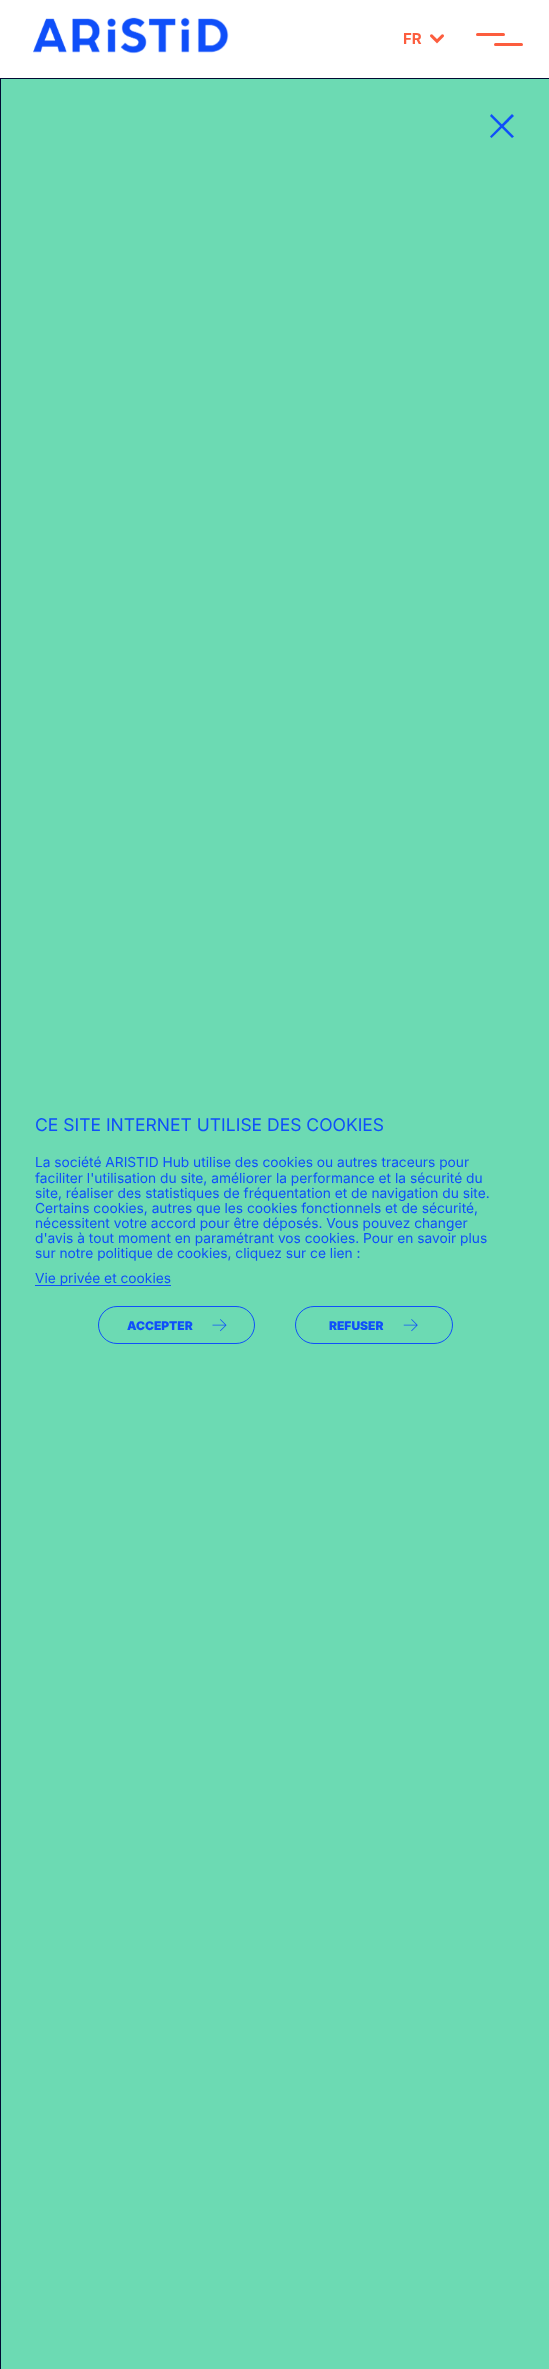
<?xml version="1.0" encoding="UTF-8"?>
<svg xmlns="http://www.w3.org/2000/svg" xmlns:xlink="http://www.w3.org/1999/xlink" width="549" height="2369">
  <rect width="100%" height="100%" fill="#ffffff" />
  <image x="33" y="17" width="196" height="37" xlink:href="image1.png" />
  <image x="430" y="34" width="14" height="10" xlink:href="image2.png" />
  <rect x="476" y="33" width="29" height="3" rx="1.5" fill="#fc5d3e" />
  <rect x="494" y="43" width="29" height="3" rx="1.5" fill="#fc5d3e" />
  <rect x="0.5" y="78.5" width="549" height="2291" fill="#6cdab3" stroke="#010a33" />
  <path d="M 491.5 114 l 22.5 22.5 l -2 1.5 l -22 -22 z" fill="#0f4ffa" />
  <path d="M 490 136.5 l 22 -22.5 l 2 2 l -22.5 22 z" fill="#0f4ffa" />
  <rect x="35" y="1285" width="136" height="1" fill="#0f4ffa" />
  <rect x="98.5" y="1306.5" width="156" height="37" rx="18.5" fill="none" stroke="#0f4ffa" />
  <image x="212" y="1319" width="15" height="13" xlink:href="image3.png" />
  <rect x="295.5" y="1306.5" width="157" height="37" rx="18.5" fill="none" stroke="#0f4ffa" />
  <image x="403" y="1319" width="15" height="13" xlink:href="image4.png" />
  <text x="403" y="44" style="font-family: Inter; font-size: 15px; font-weight: bold; fill: #fc5d3e">FR</text>
  <text x="35" y="1131" style="font-family: Inter; font-size: 17.5px; fill: #0f4ffa">CE SITE INTERNET UTILISE DES COOKIES</text>
  <text x="35" y="1167" style="font-family: Inter; font-size: 13.75px; fill: #0f4ffa">La société ARISTID Hub utilise des cookies ou autres traceurs pour</text>
  <text x="35" y="1183" style="font-family: Inter; font-size: 13.75px; fill: #0f4ffa">faciliter l'utilisation du site, améliorer la performance et la sécurité du</text>
  <text x="35" y="1198" style="font-family: Inter; font-size: 13.75px; fill: #0f4ffa">site, réaliser des statistiques de fréquentation et de navigation du site.</text>
  <text x="35" y="1213" style="font-family: Inter; font-size: 13.75px; fill: #0f4ffa">Certains cookies, autres que les cookies fonctionnels et de sécurité,</text>
  <text x="35" y="1228" style="font-family: Inter; font-size: 13.75px; fill: #0f4ffa">nécessitent votre accord pour être déposés. Vous pouvez changer</text>
  <text x="35" y="1243" style="font-family: Inter; font-size: 13.75px; fill: #0f4ffa">d'avis à tout moment en paramétrant vos cookies. Pour en savoir plus</text>
  <text x="35" y="1258" style="font-family: Inter; font-size: 13.75px; fill: #0f4ffa">sur notre politique de cookies, cliquez sur ce lien :</text>
  <text x="35" y="1283" style="font-family: Inter; font-size: 13.75px; fill: #0f4ffa">Vie privée et cookies</text>
  <text x="127" y="1330" style="font-family: Inter; font-size: 12px; font-weight: 900; fill: #0f4ffa">ACCEPTER</text>
  <text x="329" y="1330" style="font-family: Inter; font-size: 12px; font-weight: 900; fill: #0f4ffa">REFUSER</text>
</svg>
